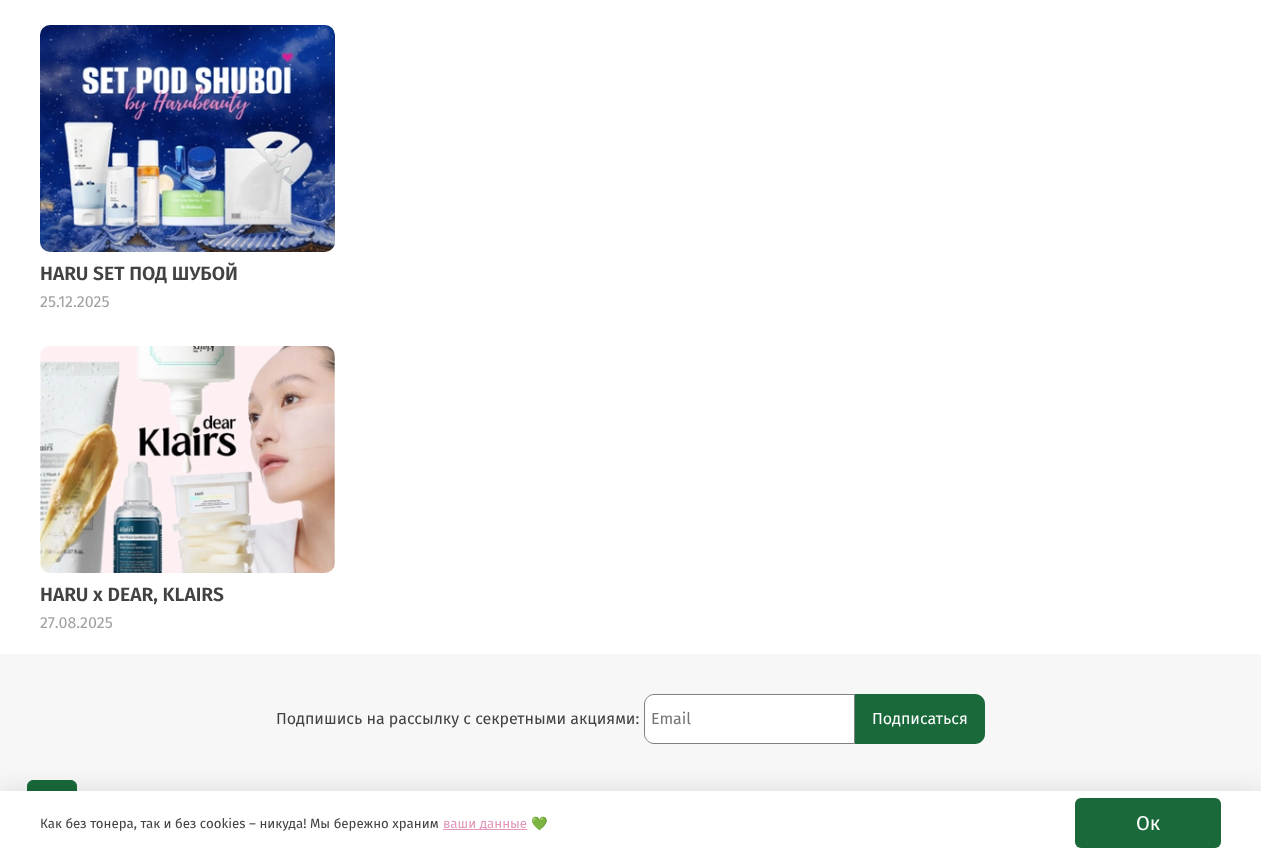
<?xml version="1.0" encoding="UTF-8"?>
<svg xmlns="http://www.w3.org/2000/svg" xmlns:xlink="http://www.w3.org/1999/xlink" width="1261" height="854">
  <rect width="100%" height="100%" fill="#ffffff" />
  <image x="40" y="25" width="295" height="227" xlink:href="image1.png" />
  <image x="40" y="346" width="295" height="227" xlink:href="image2.png" />
  <rect y="654" width="1261" height="137" fill="#f7f7f7" />
  <path d="M 654 694.5 h 200.5 v 49 h -200.5 c -5 0 -9.5 -4.5 -9.5 -9.5 v -30 c 0 -5 4.5 -9.5 9.5 -9.5 z" fill="#ffffff" stroke="#808080" />
  <path d="M 855 694 h 120 c 5.5 0 10 4.5 10 10 v 30 c 0 5.5 -4.5 10 -10 10 h -120 z" fill="#19693a" />
  <rect x="27.5" y="780.5" width="49" height="49" rx="5.5" fill="#19693a" stroke="#19693a" />
  <rect x="-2" y="788" width="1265" height="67" fill="#000000" fill-opacity="0.09" filter="blur(11.5px)" />
  <rect y="791" width="1261" height="63" fill="#ffffff" />
  <rect x="443" y="829" width="84" height="1" fill="#e096ba" />
  <rect x="1075" y="798" width="146" height="50" rx="6" fill="#19693a" />
  <text x="40" y="280" style="font-family: Fira Sans; font-size: 19.25px; font-weight: 600; fill: #424242">HARU SET ПОД ШУБОЙ</text>
  <text x="40" y="307" style="font-family: Fira Sans; font-size: 16px; fill: #a1a1a1">25.12.2025</text>
  <text x="40" y="601" style="font-family: Fira Sans; font-size: 19.25px; font-weight: 600; fill: #424242">HARU x DEAR, KLAIRS</text>
  <text x="40" y="628" style="font-family: Fira Sans; font-size: 16px; fill: #a1a1a1">27.08.2025</text>
  <text x="276" y="724" style="font-family: Fira Sans; font-size: 16px; fill: #424242">Подпишись на рассылку с секретными акциями:</text>
  <text x="651" y="724" style="font-family: Fira Sans; font-size: 16px; fill: #757575">Email</text>
  <text x="872" y="724" style="font-family: Fira Sans; font-size: 16px; fill: #ffffff">Подписаться</text>
  <text x="40" y="828" style="font-family: Fira Sans; font-size: 13.3px; fill: #424242">Как без тонера, так и без cookies – никуда! Мы бережно храним</text>
  <text x="443" y="828" style="font-family: Fira Sans; font-size: 13.3px; fill: #e096ba">ваши данные</text>
  <text x="531" y="828" style="font-family: Noto Color Emoji; font-size: 13.3px; fill: #424242">💚</text>
  <text x="1136" y="830" style="font-family: Fira Sans; font-size: 20px; fill: #ffffff">Ок</text>
</svg>
